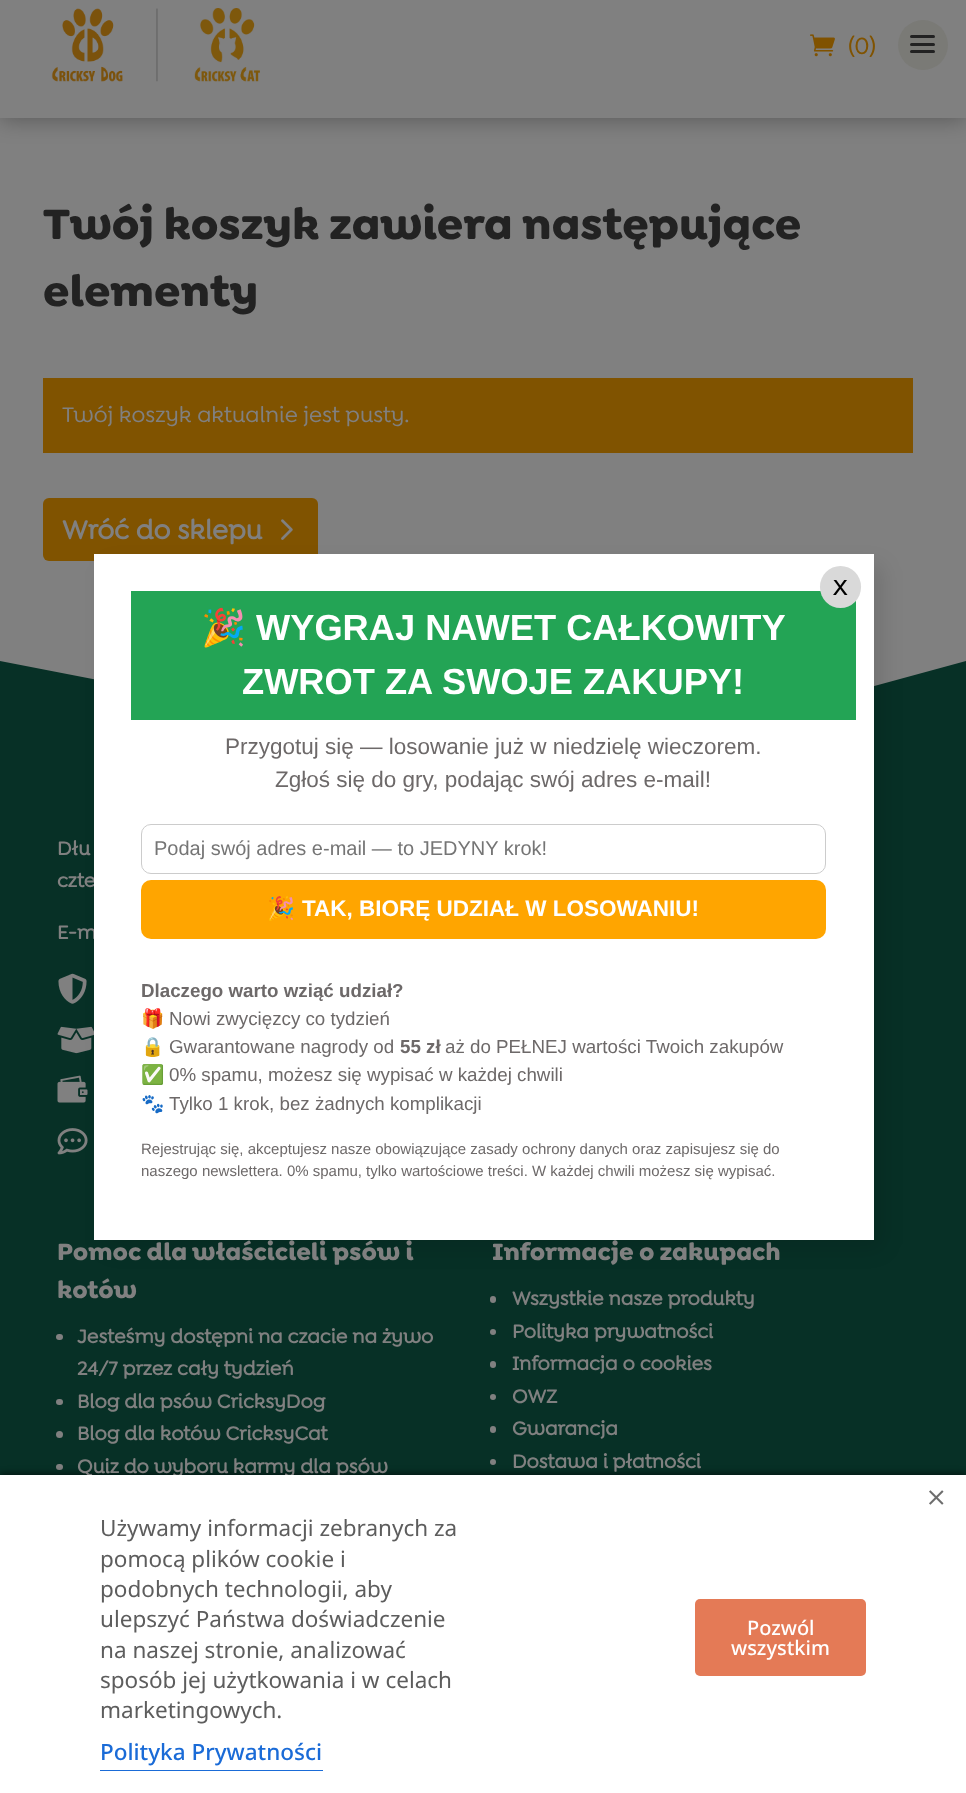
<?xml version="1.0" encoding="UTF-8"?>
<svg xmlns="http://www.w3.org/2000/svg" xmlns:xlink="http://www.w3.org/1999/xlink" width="966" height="1793">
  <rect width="100%" height="100%" fill="#808080" />
  <rect y="-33" width="966" height="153" fill="#000000" fill-opacity="0.3" filter="blur(11px)" />
  <rect width="966" height="118" fill="#808080" />
  <image x="51" y="8" width="209" height="74" xlink:href="image1.png" />
  <image x="810" y="34" width="25" height="23" xlink:href="image2.png" />
  <circle cx="923" cy="45" r="25" fill="#7a7a76" />
  <rect x="910" y="35" width="25" height="3" rx="1.5" fill="#222222" />
  <rect x="910" y="43" width="25" height="3" rx="1.5" fill="#222222" />
  <rect x="910" y="50" width="25" height="3" rx="1.5" fill="#222222" />
  <rect x="43" y="378" width="870" height="75" fill="#805300" />
  <rect x="43" y="498" width="275" height="63" rx="6" fill="#805300" />
  <image x="281" y="519" width="12" height="21" xlink:href="image3.png" />
  <rect y="661" width="966" height="814" fill="#073026" />
  <path d="M 966 661 l -99 27 c -13 4 -27 5 -42 5 l -694 -9 c -10 0 -20 -1 -28 -3 l -103 -20 z" fill="#808080" />
  <image x="58" y="973" width="29" height="31" xlink:href="image4.png" />
  <image x="57" y="1026" width="37" height="28" xlink:href="image5.png" />
  <image x="57" y="1075" width="31" height="28" xlink:href="image6.png" />
  <image x="57" y="1128" width="31" height="27" xlink:href="image7.png" />
  <rect x="56" y="1334" width="7" height="6" rx="3" fill="#808080" />
  <rect x="56" y="1399" width="7" height="6" rx="3" fill="#808080" />
  <circle cx="59.5" cy="1434.5" r="3.5" fill="#808080" />
  <rect x="56" y="1464" width="7" height="6" rx="3" fill="#808080" />
  <rect x="490" y="1296" width="6" height="7" rx="3" fill="#808080" />
  <circle cx="493" cy="1332" r="3" fill="#808080" />
  <rect x="490" y="1361" width="6" height="7" rx="3" fill="#808080" />
  <circle cx="493" cy="1397" r="3" fill="#808080" />
  <rect x="490" y="1426" width="6" height="7" rx="3" fill="#808080" />
  <circle cx="493" cy="1462" r="3" fill="#808080" />
  <rect x="104" y="564" width="780" height="686" rx="10" fill="#000000" fill-opacity="0.1" filter="blur(10px)" />
  <rect y="1473" width="966" height="318" fill="#000000" fill-opacity="0.5" filter="blur(3px)" />
  <text x="848" y="54" style="font-family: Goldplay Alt; font-size: 25px; font-weight: 500; fill: #805300">(0)</text>
  <text x="43" y="239" style="font-family: Goldplay Alt; font-size: 45px; font-weight: bold; fill: #222222">Twój koszyk zawiera następujące</text>
  <text x="43" y="306" style="font-family: Goldplay Alt; font-size: 45px; font-weight: bold; fill: #222222">elementy</text>
  <text x="62" y="422" style="font-family: Goldplay Alt; font-size: 22.5px; font-weight: 500; fill: #808080">Twój koszyk aktualnie jest pusty.</text>
  <text x="62" y="539" style="font-family: 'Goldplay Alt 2'; font-size: 27.5px; font-weight: bold; fill: #808080">Wróć do sklepu</text>
  <text x="57" y="855" style="font-family: 'Goldplay Alt 2'; font-size: 20px; font-weight: bold; fill: #808080">Dłu</text>
  <text x="57" y="887" style="font-family: 'Goldplay Alt 2'; font-size: 20px; font-weight: bold; fill: #808080">czte</text>
  <text x="57" y="939" style="font-family: 'Goldplay Alt 2'; font-size: 20px; font-weight: bold; fill: #808080">E-m</text>
  <text x="57" y="1260" style="font-family: Goldplay Alt; font-size: 25px; font-weight: bold; fill: #808080">Pomoc dla właścicieli psów i</text>
  <text x="57" y="1298" style="font-family: Goldplay Alt; font-size: 25px; font-weight: bold; fill: #808080">kotów</text>
  <text x="77" y="1343" style="font-family: 'Goldplay Alt 2'; font-size: 20px; font-weight: bold; fill: #808080">Jesteśmy dostępni na czacie na żywo</text>
  <text x="77" y="1375" style="font-family: 'Goldplay Alt 2'; font-size: 20px; font-weight: bold; fill: #808080">24/7 przez cały tydzień</text>
  <text x="77" y="1408" style="font-family: 'Goldplay Alt 2'; font-size: 20px; font-weight: bold; fill: #808080">Blog dla psów CricksyDog</text>
  <text x="77" y="1440" style="font-family: 'Goldplay Alt 2'; font-size: 20px; font-weight: bold; fill: #808080">Blog dla kotów CricksyCat</text>
  <text x="77" y="1473" style="font-family: 'Goldplay Alt 2'; font-size: 20px; font-weight: bold; fill: #808080">Quiz do wyboru karmy dla psów</text>
  <text x="492" y="1260" style="font-family: Goldplay Alt; font-size: 25px; font-weight: bold; fill: #808080">Informacje o zakupach</text>
  <text x="512" y="1305" style="font-family: 'Goldplay Alt 2'; font-size: 20px; font-weight: bold; fill: #808080">Wszystkie nasze produkty</text>
  <text x="512" y="1338" style="font-family: 'Goldplay Alt 2'; font-size: 20px; font-weight: bold; fill: #808080">Polityka prywatności</text>
  <text x="512" y="1370" style="font-family: 'Goldplay Alt 2'; font-size: 20px; font-weight: bold; fill: #808080">Informacja o cookies</text>
  <text x="512" y="1403" style="font-family: 'Goldplay Alt 2'; font-size: 20px; font-weight: bold; fill: #808080">OWZ</text>
  <text x="512" y="1435" style="font-family: 'Goldplay Alt 2'; font-size: 20px; font-weight: bold; fill: #808080">Gwarancja</text>
  <text x="512" y="1468" style="font-family: 'Goldplay Alt 2'; font-size: 20px; font-weight: bold; fill: #808080">Dostawa i płatności</text>
  <rect x="94" y="554" width="780" height="686" fill="#ffffff" />
  <rect x="131" y="591" width="725" height="129" fill="#23a455" />
  <rect x="820" y="566" width="41" height="42" rx="20.5" fill="#d9d9d9" />
  <text x="832" y="595" style="font-family: DejaVu Sans Mono; font-size: 27.5px; fill: #000000">x</text>
  <text x="201" y="640" style="font-family: Noto Color Emoji; font-size: 36.25px; font-weight: bold; fill: #ffffff">🎉</text>
  <text x="256" y="640" style="font-family: Liberation Sans; font-size: 36.25px; font-weight: bold; fill: #ffffff">WYGRAJ NAWET CAŁKOWITY</text>
  <text x="242" y="694" style="font-family: Liberation Sans; font-size: 36.25px; font-weight: bold; fill: #ffffff">ZWROT ZA SWOJE ZAKUPY!</text>
  <text x="225" y="754" style="font-family: Liberation Sans; font-size: 22.5px; fill: #6d6969">Przygotuj się — losowanie już w niedzielę wieczorem.</text>
  <text x="275" y="787" style="font-family: Liberation Sans; font-size: 22.5px; fill: #6d6969">Zgłoś się do gry, podając swój adres e-mail!</text>
  <rect x="141.5" y="824.5" width="684" height="49" rx="9.5" fill="none" stroke="#cccccc" />
  <text x="154" y="855" style="font-family: Liberation Sans; font-size: 20px; fill: #757575">Podaj swój adres e-mail — to JEDYNY krok!</text>
  <rect x="141" y="880" width="685" height="59" rx="10" fill="#ffa500" />
  <text x="267" y="916" style="font-family: Noto Color Emoji; font-size: 22.5px; font-weight: bold; fill: #ffffff">🎉</text>
  <text x="302" y="916" style="font-family: Liberation Sans; font-size: 22.5px; font-weight: bold; fill: #ffffff">TAK, BIORĘ UDZIAŁ W LOSOWANIU!</text>
  <text x="141" y="997" style="font-family: Liberation Sans; font-size: 18.75px; font-weight: bold; fill: #6d6969">Dlaczego warto wziąć udział?</text>
  <text x="141" y="1025" style="font-family: Noto Color Emoji; font-size: 18.75px; fill: #6d6969">🎁</text>
  <text x="169" y="1025" style="font-family: Liberation Sans; font-size: 18.75px; fill: #6d6969">Nowi zwycięzcy co tydzień</text>
  <text x="141" y="1053" style="font-family: Noto Color Emoji; font-size: 18.75px; fill: #6d6969">🔒</text>
  <text x="169" y="1053" style="font-family: Liberation Sans; font-size: 18.75px; fill: #6d6969">Gwarantowane nagrody od</text>
  <text x="400" y="1053" style="font-family: Liberation Sans; font-size: 18.75px; font-weight: bold; fill: #6d6969">55 zł</text>
  <text x="445" y="1053" style="font-family: Liberation Sans; font-size: 18.75px; fill: #6d6969">aż do PEŁNEJ wartości Twoich zakupów</text>
  <text x="141" y="1081" style="font-family: Noto Color Emoji; font-size: 18.75px; fill: #6d6969">✅</text>
  <text x="169" y="1081" style="font-family: Liberation Sans; font-size: 18.75px; fill: #6d6969">0% spamu, możesz się wypisać w każdej chwili</text>
  <text x="141" y="1110" style="font-family: Noto Color Emoji; font-size: 18.75px; fill: #6d6969">🐾</text>
  <text x="169" y="1110" style="font-family: Liberation Sans; font-size: 18.75px; fill: #6d6969">Tylko 1 krok, bez żadnych komplikacji</text>
  <text x="141" y="1154" style="font-family: Liberation Sans; font-size: 15px; fill: #6d6969">Rejestrując się, akceptujesz nasze obowiązujące zasady ochrony danych oraz zapisujesz się do</text>
  <text x="141" y="1176" style="font-family: Liberation Sans; font-size: 15px; fill: #6d6969">naszego newslettera. 0% spamu, tylko wartościowe treści. W każdej chwili możesz się wypisać.</text>
  <rect y="1475" width="966" height="318" fill="#ffffff" />
  <image x="929" y="1490" width="15" height="15" xlink:href="image8.png" />
  <text x="100" y="1536" style="font-family: Noto Sans; font-size: 22.5px; fill: #5d5d5d">Używamy informacji zebranych za</text>
  <text x="100" y="1567" style="font-family: Noto Sans; font-size: 22.5px; fill: #5d5d5d">pomocą plików cookie i</text>
  <text x="100" y="1597" style="font-family: Noto Sans; font-size: 22.5px; fill: #5d5d5d">podobnych technologii, aby</text>
  <text x="100" y="1627" style="font-family: Noto Sans; font-size: 22.5px; fill: #5d5d5d">ulepszyć Państwa doświadczenie</text>
  <text x="100" y="1658" style="font-family: Noto Sans; font-size: 22.5px; fill: #5d5d5d">na naszej stronie, analizować</text>
  <text x="100" y="1688" style="font-family: Noto Sans; font-size: 22.5px; fill: #5d5d5d">sposób jej użytkowania i w celach</text>
  <text x="100" y="1718" style="font-family: Noto Sans; font-size: 22.5px; fill: #5d5d5d">marketingowych.</text>
  <text x="100" y="1760" style="font-family: Noto Sans; font-size: 22.5px; font-weight: 500; fill: #1a6bd7">Polityka Prywatności</text>
  <rect x="100" y="1770" width="223" height="1" fill="#1a6bd7" />
  <rect x="695" y="1599" width="171" height="77" rx="5" fill="#e47a56" />
  <text x="747" y="1635" style="font-family: Noto Sans; font-size: 20px; font-weight: 500; fill: #ffffff">Pozwól</text>
  <text x="731" y="1655" style="font-family: Noto Sans; font-size: 20px; font-weight: 500; fill: #ffffff">wszystkim</text>
</svg>
